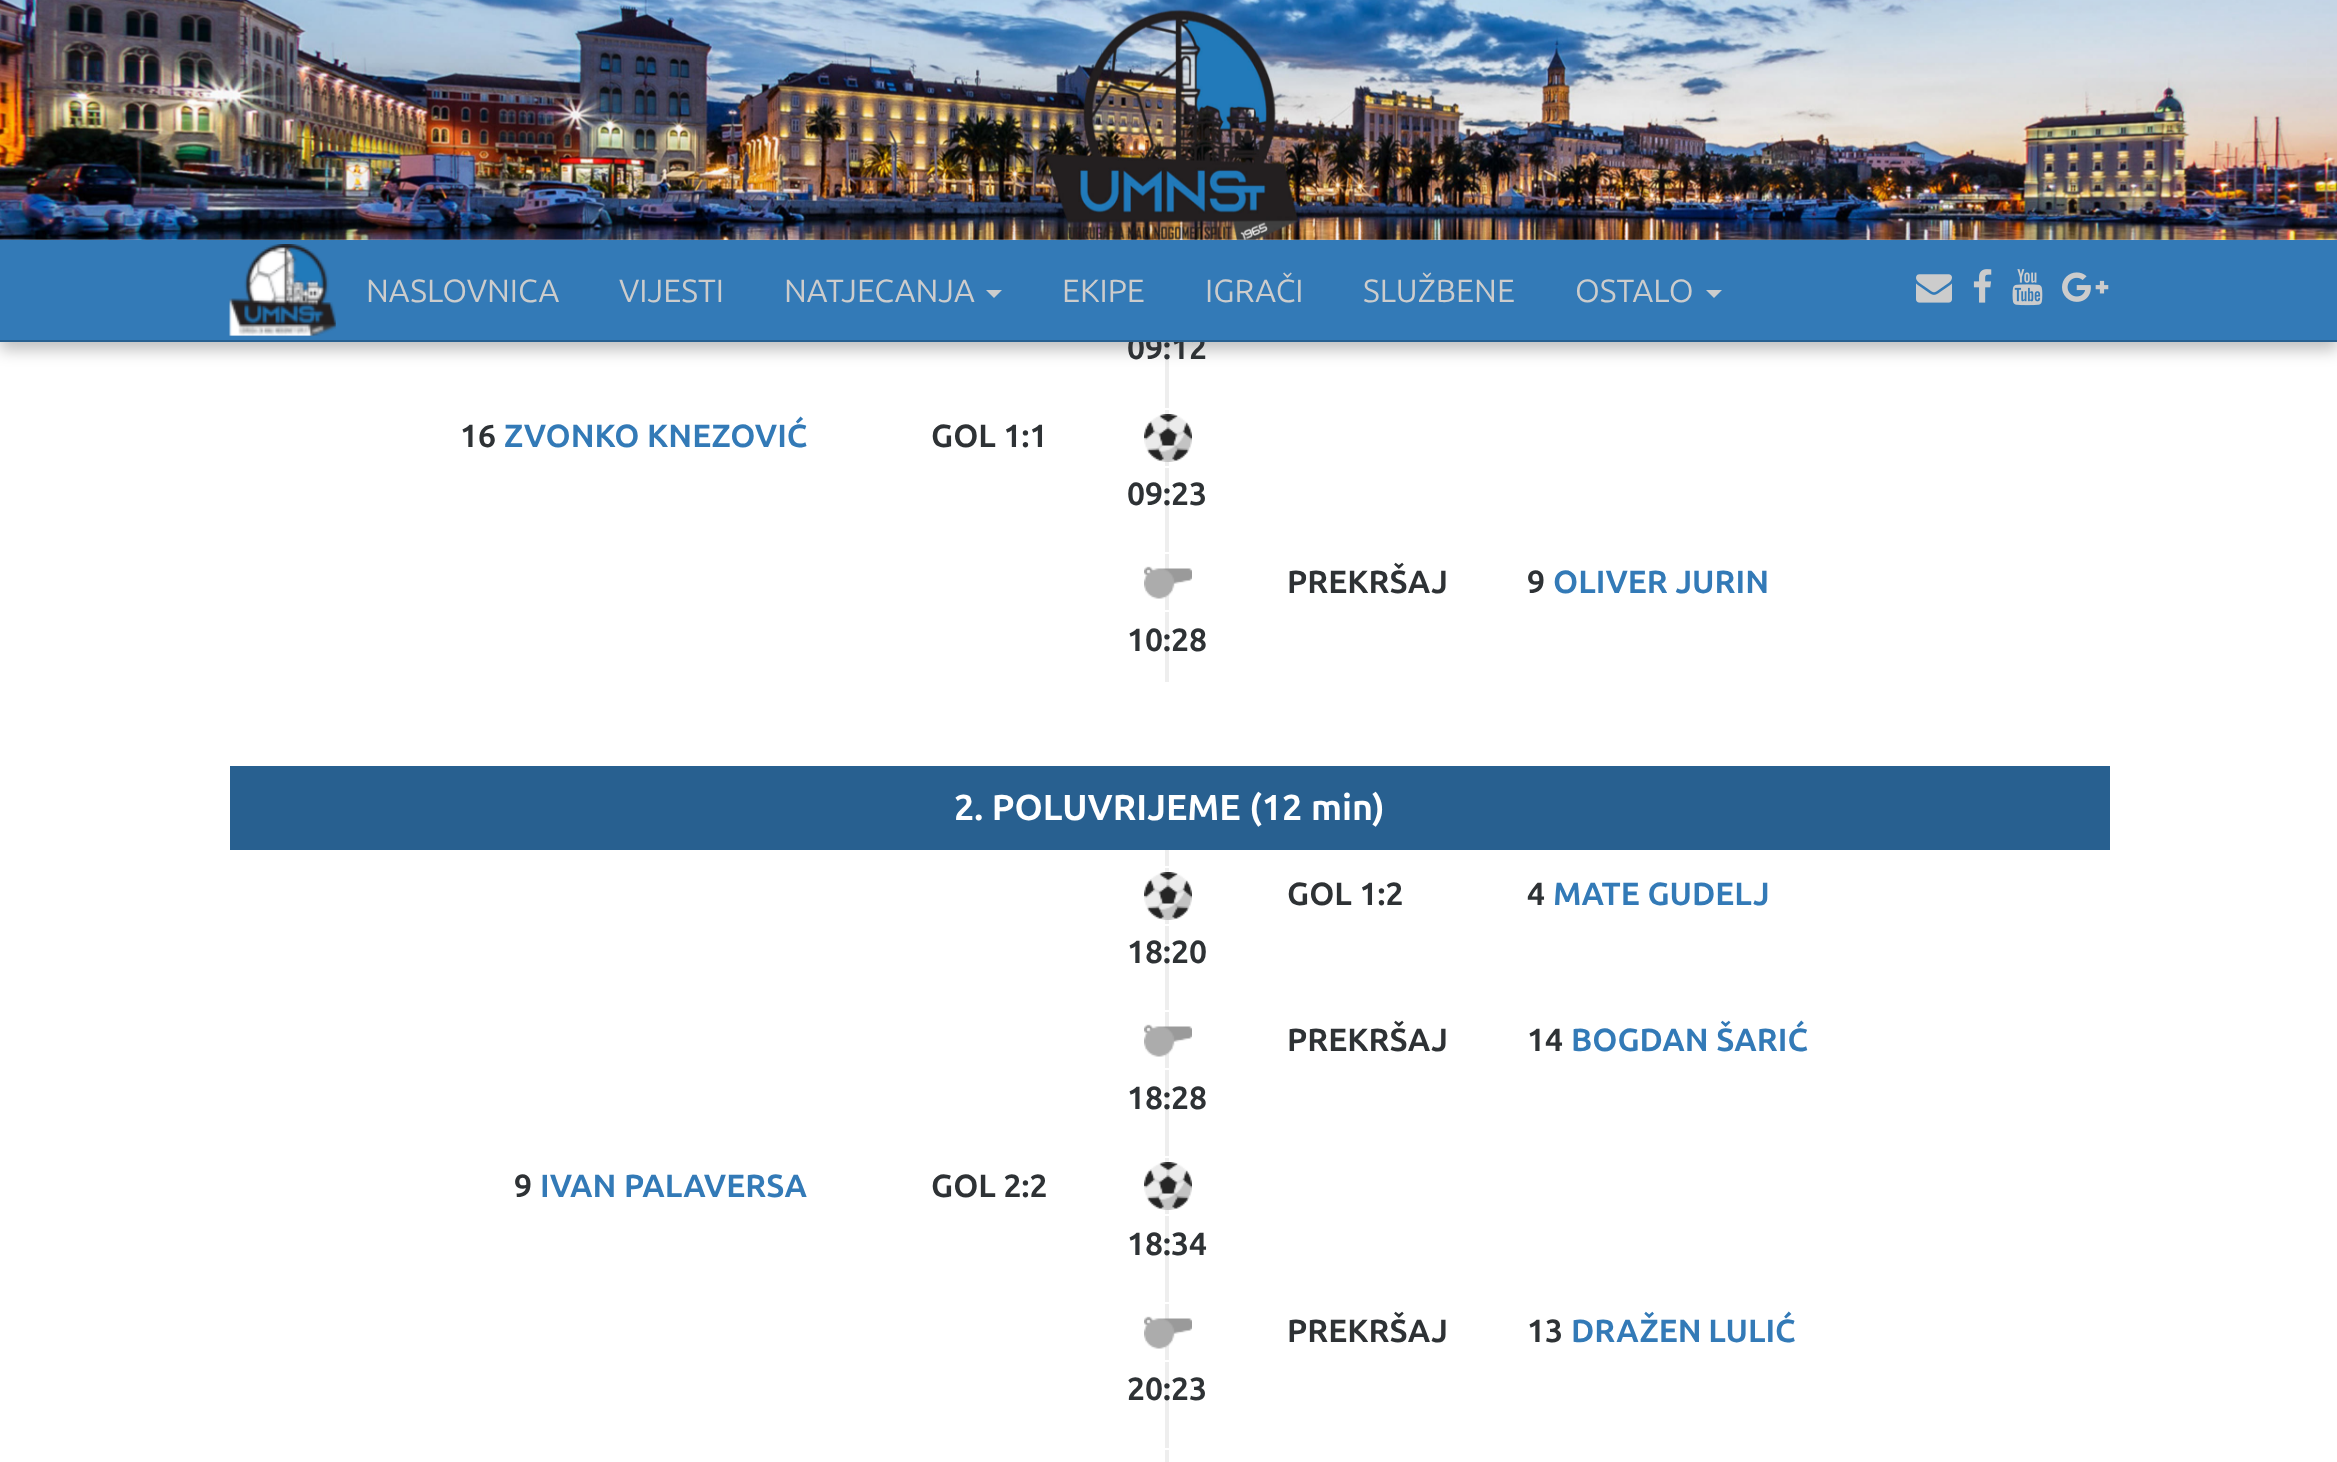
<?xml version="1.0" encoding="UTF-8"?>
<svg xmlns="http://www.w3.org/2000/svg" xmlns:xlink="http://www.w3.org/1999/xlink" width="2337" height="1462">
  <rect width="100%" height="100%" fill="#ffffff" />
  <image x="0" y="0" width="2337" height="240" xlink:href="image1.png" />
  <rect x="1165" y="342" width="4" height="340" fill="#eeeeee" />
  <rect y="248" width="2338" height="102" fill="#000000" fill-opacity="0.25" filter="blur(8px)" />
  <rect x="1165" y="408" width="4" height="2" fill="#ffffff" />
  <image x="1144" y="414" width="48" height="48" xlink:href="image7.png" />
  <rect x="1165" y="466" width="4" height="2" fill="#ffffff" />
  <rect x="1165" y="552" width="4" height="2" fill="#ffffff" />
  <image x="1144" y="566" width="48" height="33" xlink:href="image8.png" />
  <rect x="1165" y="610" width="4" height="2" fill="#ffffff" />
  <rect x="230" y="766" width="1880" height="84" fill="#286090" />
  <rect x="1165" y="850" width="4" height="612" fill="#eeeeee" />
  <rect x="1165" y="866" width="4" height="2" fill="#ffffff" />
  <image x="1144" y="872" width="48" height="48" xlink:href="image7.png" />
  <rect x="1165" y="924" width="4" height="2" fill="#ffffff" />
  <rect x="1165" y="1010" width="4" height="2" fill="#ffffff" />
  <image x="1144" y="1024" width="48" height="33" xlink:href="image8.png" />
  <rect x="1165" y="1068" width="4" height="2" fill="#ffffff" />
  <rect x="1165" y="1156" width="4" height="2" fill="#ffffff" />
  <image x="1144" y="1162" width="48" height="48" xlink:href="image7.png" />
  <rect x="1165" y="1214" width="4" height="2" fill="#ffffff" />
  <rect x="1165" y="1302" width="4" height="2" fill="#ffffff" />
  <image x="1144" y="1316" width="48" height="33" xlink:href="image8.png" />
  <rect x="1165" y="1360" width="4" height="2" fill="#ffffff" />
  <rect x="1165" y="1448" width="4" height="2" fill="#ffffff" />
  <text x="1127" y="359" style="font-family: Ubuntu; font-size: 32px; font-weight: bold; fill: #2e3235">09:12</text>
  <rect y="240" width="2337" height="100" fill="#337ab7" />
  <image x="2062" y="272" width="47" height="30" xlink:href="image6.png" />
  <image x="2012" y="269" width="31" height="37" xlink:href="image5.png" />
  <image x="1973" y="269" width="19" height="34" xlink:href="image4.png" />
  <image x="1916" y="274" width="36" height="29" xlink:href="image3.png" />
  <path d="M 1706 290 h 16 l -8 8 z" fill="#cccccc" />
  <text x="1575" y="302" style="font-family: Ubuntu; font-size: 32px; fill: #cccccc">OSTALO</text>
  <text x="1363" y="302" style="font-family: Ubuntu; font-size: 32px; fill: #cccccc">SLUŽBENE</text>
  <text x="1205" y="302" style="font-family: Ubuntu; font-size: 32px; fill: #cccccc">IGRAČI</text>
  <text x="1062" y="302" style="font-family: Ubuntu; font-size: 32px; fill: #cccccc">EKIPE</text>
  <path d="M 986 290 h 16 l -8 8 z" fill="#cccccc" />
  <text x="784" y="302" style="font-family: Ubuntu; font-size: 32px; fill: #cccccc">NATJECANJA</text>
  <text x="619" y="302" style="font-family: Ubuntu; font-size: 32px; fill: #cccccc">VIJESTI</text>
  <text x="366" y="302" style="font-family: Ubuntu; font-size: 32px; fill: #cccccc">NASLOVNICA</text>
  <image x="229" y="244" width="107" height="92" xlink:href="image2.png" />
  <rect y="340" width="2337" height="2" fill="#286090" />
  <text x="460" y="447" style="font-family: Ubuntu; font-size: 32px; font-weight: bold; fill: #2e3235">16</text>
  <text x="504" y="447" style="font-family: Ubuntu; font-size: 32px; font-weight: bold; fill: #337ab7">ZVONKO KNEZOVIĆ</text>
  <text x="931" y="447" style="font-family: Ubuntu; font-size: 32px; font-weight: bold; fill: #2e3235">GOL 1:1</text>
  <text x="1127" y="505" style="font-family: Ubuntu; font-size: 32px; font-weight: bold; fill: #2e3235">09:23</text>
  <text x="1287" y="593" style="font-family: Ubuntu; font-size: 32px; font-weight: bold; fill: #2e3235">PREKRŠAJ</text>
  <text x="1527" y="593" style="font-family: Ubuntu; font-size: 32px; font-weight: bold; fill: #2e3235">9</text>
  <text x="1553" y="593" style="font-family: Ubuntu; font-size: 32px; font-weight: bold; fill: #337ab7">OLIVER JURIN</text>
  <text x="1127" y="651" style="font-family: Ubuntu; font-size: 32px; font-weight: bold; fill: #2e3235">10:28</text>
  <text x="954" y="820" style="font-family: Ubuntu; font-size: 36px; font-weight: bold; fill: #ffffff">2. POLUVRIJEME (12 min)</text>
  <text x="1287" y="905" style="font-family: Ubuntu; font-size: 32px; font-weight: bold; fill: #2e3235">GOL 1:2</text>
  <text x="1527" y="905" style="font-family: Ubuntu; font-size: 32px; font-weight: bold; fill: #2e3235">4</text>
  <text x="1553" y="905" style="font-family: Ubuntu; font-size: 32px; font-weight: bold; fill: #337ab7">MATE GUDELJ</text>
  <text x="1127" y="963" style="font-family: Ubuntu; font-size: 32px; font-weight: bold; fill: #2e3235">18:20</text>
  <text x="1287" y="1051" style="font-family: Ubuntu; font-size: 32px; font-weight: bold; fill: #2e3235">PREKRŠAJ</text>
  <text x="1527" y="1051" style="font-family: Ubuntu; font-size: 32px; font-weight: bold; fill: #2e3235">14</text>
  <text x="1571" y="1051" style="font-family: Ubuntu; font-size: 32px; font-weight: bold; fill: #337ab7">BOGDAN ŠARIĆ</text>
  <text x="1127" y="1109" style="font-family: Ubuntu; font-size: 32px; font-weight: bold; fill: #2e3235">18:28</text>
  <text x="514" y="1197" style="font-family: Ubuntu; font-size: 32px; font-weight: bold; fill: #2e3235">9</text>
  <text x="540" y="1197" style="font-family: Ubuntu; font-size: 32px; font-weight: bold; fill: #337ab7">IVAN PALAVERSA</text>
  <text x="931" y="1197" style="font-family: Ubuntu; font-size: 32px; font-weight: bold; fill: #2e3235">GOL 2:2</text>
  <text x="1127" y="1255" style="font-family: Ubuntu; font-size: 32px; font-weight: bold; fill: #2e3235">18:34</text>
  <text x="1287" y="1342" style="font-family: Ubuntu; font-size: 32px; font-weight: bold; fill: #2e3235">PREKRŠAJ</text>
  <text x="1527" y="1342" style="font-family: Ubuntu; font-size: 32px; font-weight: bold; fill: #2e3235">13</text>
  <text x="1571" y="1342" word-spacing="-1" style="font-family: Ubuntu; font-size: 32px; font-weight: bold; fill: #337ab7">DRAŽEN LULIĆ</text>
  <text x="1127" y="1400" style="font-family: Ubuntu; font-size: 32px; font-weight: bold; fill: #2e3235">20:23</text>
</svg>
